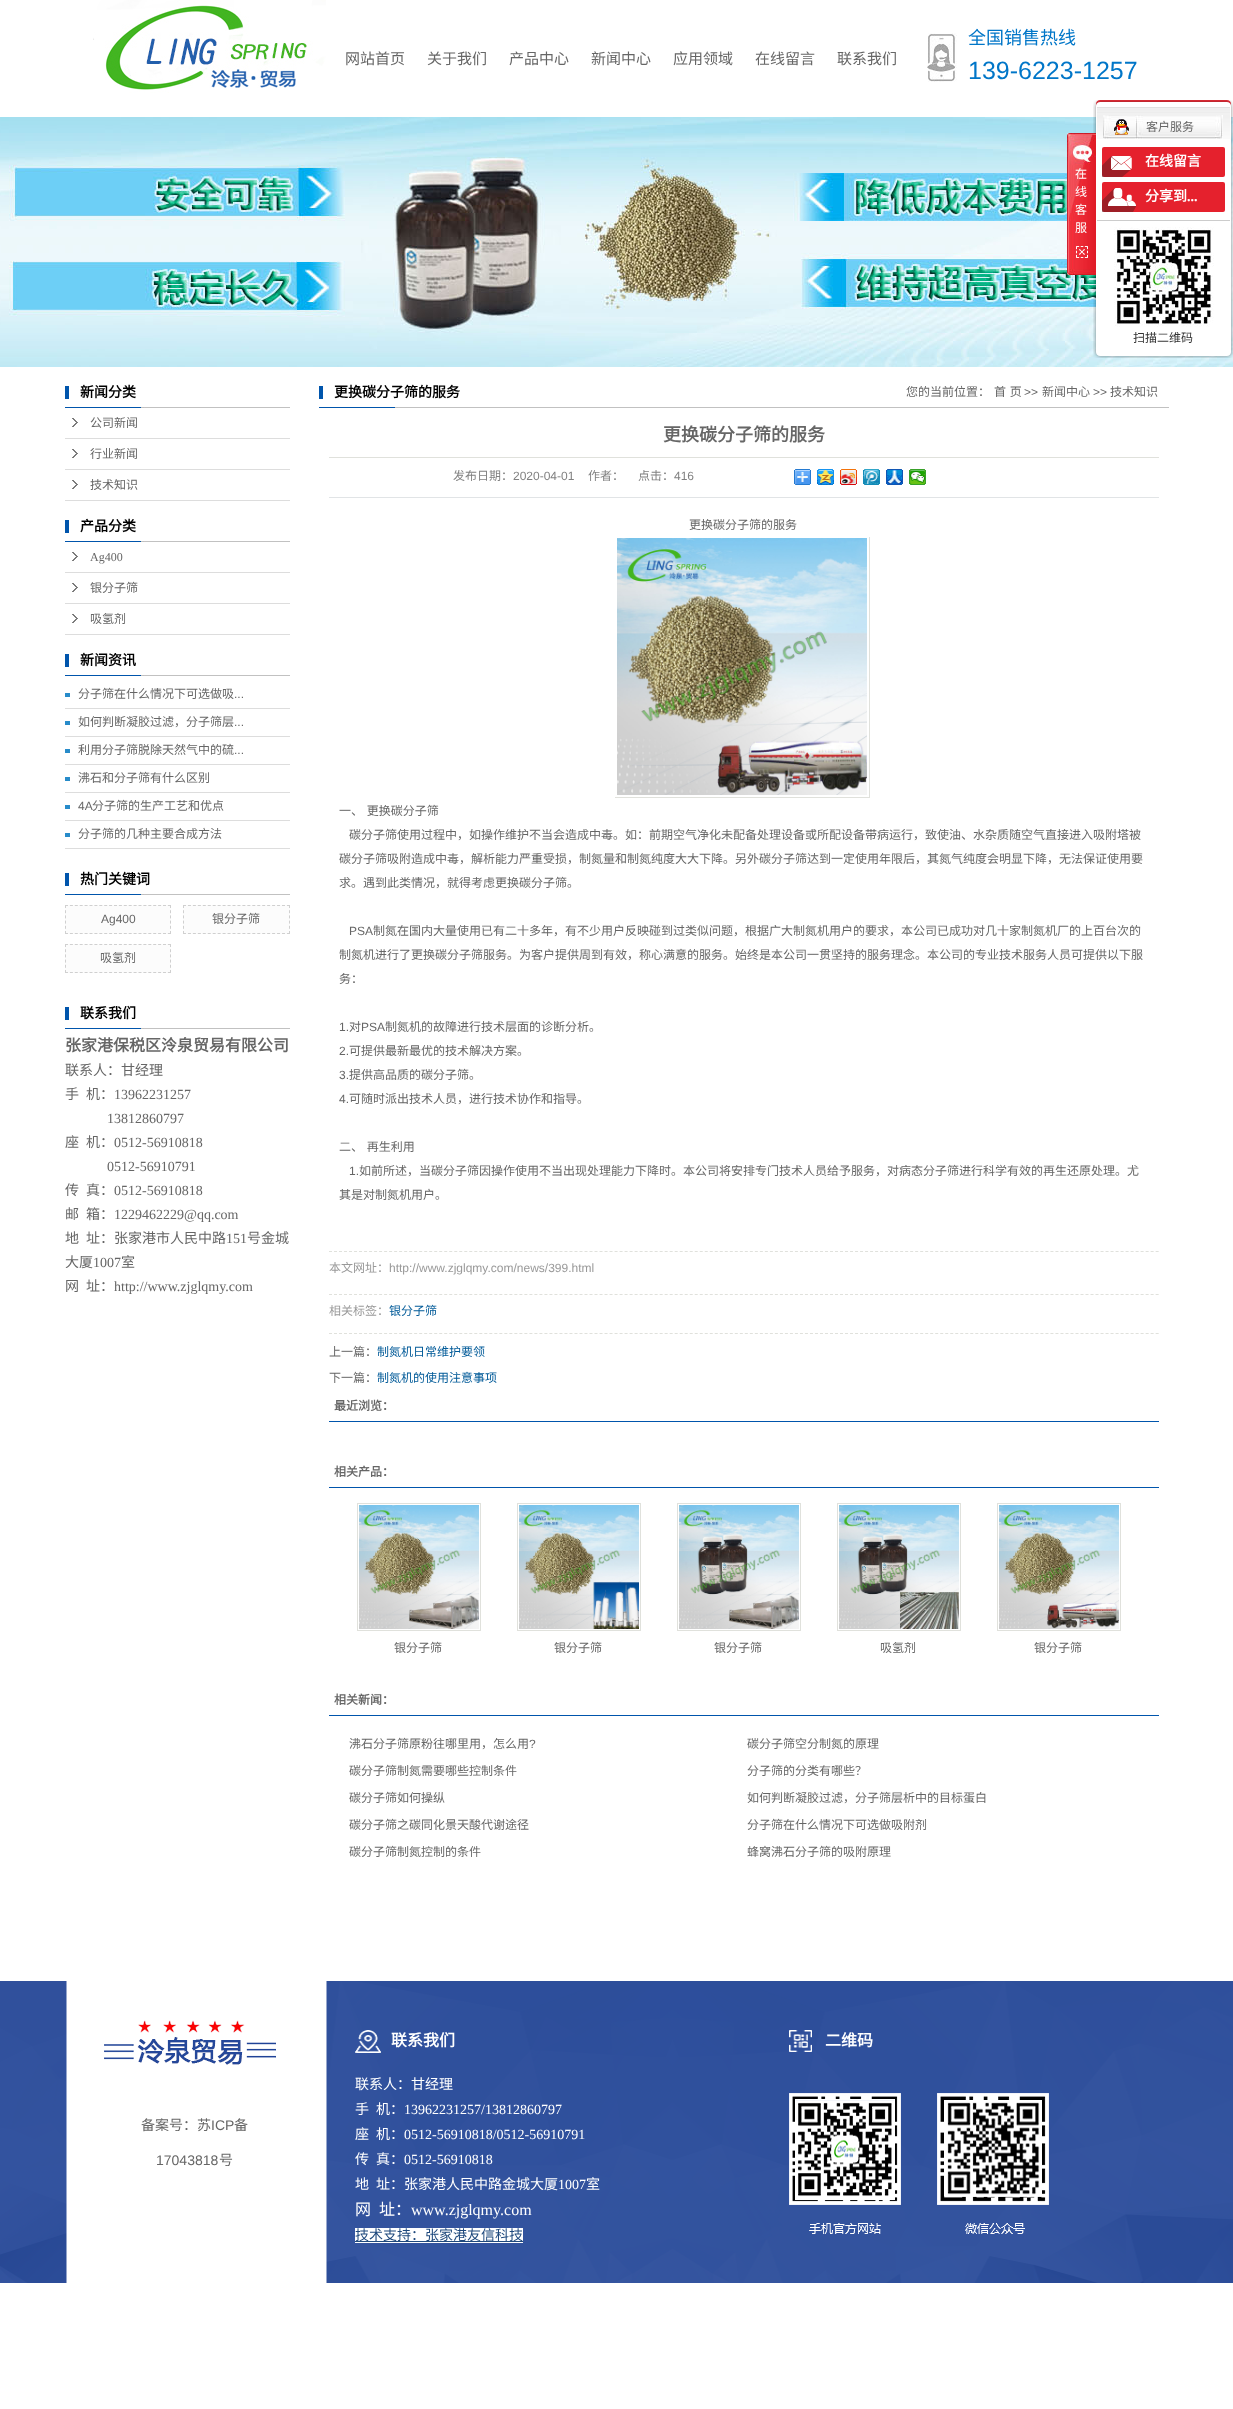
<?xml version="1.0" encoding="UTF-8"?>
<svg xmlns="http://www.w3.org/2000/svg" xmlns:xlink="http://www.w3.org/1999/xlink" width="1233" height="2409">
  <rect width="100%" height="100%" fill="#ffffff" />
  <image x="93" y="0" width="233" height="93" xlink:href="image1.png" />
  <image x="927" y="33" width="30" height="49" xlink:href="image2.png" />
  <image x="0" y="117" width="1233" height="250" xlink:href="image3.png" />
  <image x="1093" y="107" width="140" height="243" xlink:href="image7.png" />
  <image x="1067" y="133" width="29" height="142" xlink:href="image4.png" />
  <image x="1076" y="246" width="12" height="12" xlink:href="image5.png" />
  <image x="1093" y="100" width="140" height="7" xlink:href="image6.png" />
  <image x="1097" y="107" width="133" height="32" xlink:href="image8.png" />
  <image x="1103" y="115" width="120" height="24" xlink:href="image9.png" />
  <image x="1114" y="119" width="15" height="16" xlink:href="image10.png" />
  <rect x="1102" y="147" width="123" height="30" rx="2" fill="#e5212d" />
  <image x="1102" y="156" width="30" height="21" xlink:href="image11.png" />
  <rect x="1102" y="182" width="123" height="30" rx="2" fill="#e5212d" />
  <image x="1102" y="188" width="34" height="24" xlink:href="image12.png" />
  <rect x="1097" y="220" width="133" height="1" fill="#cccccc" />
  <image x="1114" y="227" width="100" height="100" xlink:href="image13.png" />
  <image x="1093" y="350" width="140" height="8" xlink:href="image14.png" />
  <image x="65" y="386" width="225" height="22" xlink:href="image15.png" />
  <image x="72" y="418" width="6" height="9" xlink:href="image16.png" />
  <rect x="65" y="438" width="225" height="1" fill="#dddddd" />
  <image x="72" y="449" width="6" height="9" xlink:href="image16.png" />
  <rect x="65" y="469" width="225" height="1" fill="#dddddd" />
  <image x="72" y="480" width="6" height="9" xlink:href="image16.png" />
  <rect x="65" y="500" width="225" height="1" fill="#dddddd" />
  <image x="65" y="520" width="225" height="22" xlink:href="image15.png" />
  <image x="72" y="552" width="6" height="9" xlink:href="image16.png" />
  <rect x="65" y="572" width="225" height="1" fill="#dddddd" />
  <image x="72" y="583" width="6" height="9" xlink:href="image16.png" />
  <rect x="65" y="603" width="225" height="1" fill="#dddddd" />
  <image x="72" y="614" width="6" height="9" xlink:href="image16.png" />
  <rect x="65" y="634" width="225" height="1" fill="#dddddd" />
  <image x="65" y="654" width="225" height="22" xlink:href="image15.png" />
  <image x="65" y="693" width="5" height="4" xlink:href="image17.png" />
  <rect x="65" y="708" width="225" height="1" fill="#dddddd" />
  <image x="65" y="721" width="5" height="4" xlink:href="image17.png" />
  <rect x="65" y="736" width="225" height="1" fill="#dddddd" />
  <image x="65" y="749" width="5" height="4" xlink:href="image17.png" />
  <rect x="65" y="764" width="225" height="1" fill="#dddddd" />
  <image x="65" y="777" width="5" height="4" xlink:href="image17.png" />
  <rect x="65" y="792" width="225" height="1" fill="#dddddd" />
  <image x="65" y="805" width="5" height="4" xlink:href="image17.png" />
  <rect x="65" y="820" width="225" height="1" fill="#dddddd" />
  <image x="65" y="833" width="5" height="4" xlink:href="image17.png" />
  <rect x="65" y="848" width="225" height="1" fill="#dddddd" />
  <image x="65" y="873" width="225" height="22" xlink:href="image15.png" />
  <rect x="65" y="905" width="106" height="29" fill="#fcfcfc" />
  <path d="M 65 905.5 h 106" fill="none" stroke="#d0d0d0" stroke-dasharray="3 1.9" />
  <path d="M 170.5 905 v 29" fill="none" stroke="#d0d0d0" stroke-dasharray="3 2.2" />
  <path d="M 65 933.5 h 106" fill="none" stroke="#d0d0d0" stroke-dasharray="3 1.9" />
  <path d="M 65.5 905 v 29" fill="none" stroke="#d0d0d0" stroke-dasharray="3 2.2" />
  <rect x="183" y="905" width="107" height="29" fill="#fcfcfc" />
  <path d="M 183 905.5 h 107" fill="none" stroke="#d0d0d0" stroke-dasharray="3 1.95" />
  <path d="M 289.5 905 v 29" fill="none" stroke="#d0d0d0" stroke-dasharray="3 2.2" />
  <path d="M 183 933.5 h 107" fill="none" stroke="#d0d0d0" stroke-dasharray="3 1.95" />
  <path d="M 183.5 905 v 29" fill="none" stroke="#d0d0d0" stroke-dasharray="3 2.2" />
  <rect x="65" y="944" width="106" height="29" fill="#fcfcfc" />
  <path d="M 65 944.5 h 106" fill="none" stroke="#d0d0d0" stroke-dasharray="3 1.9" />
  <path d="M 170.5 944 v 29" fill="none" stroke="#d0d0d0" stroke-dasharray="3 2.2" />
  <path d="M 65 972.5 h 106" fill="none" stroke="#d0d0d0" stroke-dasharray="3 1.9" />
  <path d="M 65.5 944 v 29" fill="none" stroke="#d0d0d0" stroke-dasharray="3 2.2" />
  <image x="65" y="1007" width="225" height="22" xlink:href="image15.png" />
  <image x="319" y="386" width="850" height="22" xlink:href="image18.png" />
  <rect x="329" y="457" width="830" height="1" fill="#e0e1dc" />
  <rect x="329" y="497" width="830" height="1" fill="#e1e4e6" />
  <image x="794" y="469" width="17" height="16" xlink:href="image19.png" />
  <image x="817" y="469" width="17" height="16" xlink:href="image20.png" />
  <image x="840" y="469" width="17" height="16" xlink:href="image21.png" />
  <image x="863" y="469" width="17" height="16" xlink:href="image22.png" />
  <image x="886" y="469" width="17" height="16" xlink:href="image23.png" />
  <image x="909" y="469" width="17" height="16" xlink:href="image24.png" />
  <image x="615" y="537" width="255" height="261" xlink:href="image25.png" />
  <path d="M 329 1251.5 h 830" fill="none" stroke="#e0e1dc" stroke-dasharray="3 2.01" />
  <path d="M 329 1294.5 h 830" fill="none" stroke="#e0e1dc" stroke-dasharray="3 2.01" />
  <path d="M 329 1333.5 h 830" fill="none" stroke="#e0e1dc" stroke-dasharray="3 2.01" />
  <rect x="329" y="1421" width="830" height="1" fill="#0055ac" />
  <rect x="329" y="1487" width="830" height="1" fill="#0055ac" />
  <rect x="357.5" y="1503.5" width="123" height="127" fill="none" stroke="#e0e1dc" />
  <image x="359" y="1505" width="120" height="124" xlink:href="image26.png" />
  <rect x="517.5" y="1503.5" width="123" height="127" fill="none" stroke="#e0e1dc" />
  <image x="519" y="1505" width="120" height="124" xlink:href="image27.png" />
  <rect x="677.5" y="1503.5" width="123" height="127" fill="none" stroke="#e0e1dc" />
  <image x="679" y="1505" width="120" height="124" xlink:href="image28.png" />
  <rect x="837.5" y="1503.5" width="123" height="127" fill="none" stroke="#e0e1dc" />
  <image x="839" y="1505" width="120" height="124" xlink:href="image29.png" />
  <rect x="997.5" y="1503.5" width="123" height="127" fill="none" stroke="#e0e1dc" />
  <image x="999" y="1505" width="120" height="124" xlink:href="image30.png" />
  <rect x="329" y="1715" width="830" height="1" fill="#0055ac" />
  <image x="0" y="1981" width="1233" height="302" xlink:href="image31.png" />
  <image x="355" y="2030" width="26" height="23" xlink:href="image32.png" />
  <rect x="355" y="2228" width="168" height="15" fill="#ffffff" />
  <rect x="355" y="2241" width="168" height="1" fill="#1f497d" />
  <image x="789" y="2030" width="23" height="22" xlink:href="image33.png" />
  <image x="789" y="2093" width="260" height="141" xlink:href="image34.png" />
  <image x="104" y="2020" width="172" height="45" xlink:href="image35.png" />
  <text x="345" y="64" style="font-family: Noto Sans CJK SC; font-size: 15px; fill: #666666">网站首页</text>
  <text x="427" y="64" style="font-family: Noto Sans CJK SC; font-size: 15px; fill: #666666">关于我们</text>
  <text x="509" y="64" style="font-family: Noto Sans CJK SC; font-size: 15px; fill: #666666">产品中心</text>
  <text x="591" y="64" style="font-family: Noto Sans CJK SC; font-size: 15px; fill: #666666">新闻中心</text>
  <text x="673" y="64" style="font-family: Noto Sans CJK SC; font-size: 15px; fill: #666666">应用领域</text>
  <text x="755" y="64" style="font-family: Noto Sans CJK SC; font-size: 15px; fill: #666666">在线留言</text>
  <text x="837" y="64" style="font-family: Noto Sans CJK SC; font-size: 15px; fill: #666666">联系我们</text>
  <text x="968" y="44" style="font-family: Noto Sans CJK SC; font-size: 18px; fill: #0076c8">全国销售热线</text>
  <text x="968" y="79" style="font-family: Liberation Sans; font-size: 25px; fill: #0076c8">139-6223-1257</text>
  <text x="1075" y="178" style="font-family: Noto Sans CJK SC; font-size: 12px; fill: #ffffff">在</text>
  <text x="1075" y="196" style="font-family: Noto Sans CJK SC; font-size: 12px; fill: #ffffff">线</text>
  <text x="1075" y="214" style="font-family: Noto Sans CJK SC; font-size: 12px; fill: #ffffff">客</text>
  <text x="1075" y="232" style="font-family: Noto Sans CJK SC; font-size: 12px; fill: #ffffff">服</text>
  <text x="1146" y="131" style="font-family: Noto Sans CJK SC; font-size: 12px; fill: #666666">客户服务</text>
  <text x="1145" y="166" style="font-family: Noto Sans CJK SC; font-size: 14px; font-weight: bold; fill: #ffffff">在线留言</text>
  <text x="1145" y="201" style="font-family: Noto Sans CJK SC; font-size: 14px; font-weight: bold; fill: #ffffff">分享到</text>
  <text x="1187" y="201" style="font-family: Liberation Serif; font-size: 14px; font-weight: bold; fill: #ffffff">...</text>
  <text x="1133" y="342" style="font-family: Noto Sans CJK SC; font-size: 12px; fill: #333333">扫描二维码</text>
  <text x="80" y="397" style="font-family: Noto Sans CJK SC; font-size: 14px; font-weight: bold; fill: #000000">新闻分类</text>
  <text x="90" y="427" style="font-family: Noto Sans CJK SC; font-size: 12px; fill: #666666">公司新闻</text>
  <text x="90" y="458" style="font-family: Noto Sans CJK SC; font-size: 12px; fill: #666666">行业新闻</text>
  <text x="90" y="489" style="font-family: Noto Sans CJK SC; font-size: 12px; fill: #666666">技术知识</text>
  <text x="80" y="531" style="font-family: Noto Sans CJK SC; font-size: 14px; font-weight: bold; fill: #000000">产品分类</text>
  <text x="90" y="561" style="font-family: Liberation Serif; font-size: 12px; fill: #666666">Ag400</text>
  <text x="90" y="592" style="font-family: Noto Sans CJK SC; font-size: 12px; fill: #666666">银分子筛</text>
  <text x="90" y="623" style="font-family: Noto Sans CJK SC; font-size: 12px; fill: #666666">吸氢剂</text>
  <text x="80" y="665" style="font-family: Noto Sans CJK SC; font-size: 14px; font-weight: bold; fill: #000000">新闻资讯</text>
  <text x="78" y="698" style="font-family: Noto Sans CJK SC; font-size: 12px; fill: #666666">分子筛在什么情况下可选做吸</text>
  <text x="234" y="698" style="font-family: Liberation Sans; font-size: 12px; fill: #666666">...</text>
  <text x="78" y="726" style="font-family: Noto Sans CJK SC; font-size: 12px; fill: #666666">如何判断凝胶过滤，分子筛层</text>
  <text x="234" y="726" style="font-family: Liberation Sans; font-size: 12px; fill: #666666">...</text>
  <text x="78" y="754" style="font-family: Noto Sans CJK SC; font-size: 12px; fill: #666666">利用分子筛脱除天然气中的硫</text>
  <text x="234" y="754" style="font-family: Liberation Sans; font-size: 12px; fill: #666666">...</text>
  <text x="78" y="782" style="font-family: Noto Sans CJK SC; font-size: 12px; fill: #666666">沸石和分子筛有什么区别</text>
  <text x="78" y="810" style="font-family: Liberation Sans; font-size: 12px; fill: #666666">4A</text>
  <text x="92" y="810" style="font-family: Noto Sans CJK SC; font-size: 12px; fill: #666666">分子筛的生产工艺和优点</text>
  <text x="78" y="838" style="font-family: Noto Sans CJK SC; font-size: 12px; fill: #666666">分子筛的几种主要合成方法</text>
  <text x="80" y="884" style="font-family: Noto Sans CJK SC; font-size: 14px; font-weight: bold; fill: #000000">热门关键词</text>
  <text x="101" y="923" style="font-family: Liberation Sans; font-size: 12px; fill: #666666">Ag400</text>
  <text x="212" y="923" style="font-family: Noto Sans CJK SC; font-size: 12px; fill: #666666">银分子筛</text>
  <text x="100" y="962" style="font-family: Noto Sans CJK SC; font-size: 12px; fill: #666666">吸氢剂</text>
  <text x="80" y="1018" style="font-family: Noto Sans CJK SC; font-size: 14px; font-weight: bold; fill: #000000">联系我们</text>
  <text x="65" y="1051" style="font-family: Noto Sans CJK SC; font-size: 16px; font-weight: bold; fill: #666666">张家港保税区泠泉贸易有限公司</text>
  <text x="65" y="1075" style="font-family: Noto Sans CJK SC; font-size: 14px; fill: #666666">联系人：甘经理</text>
  <text x="65" y="1099" style="font-family: Noto Sans CJK SC; font-size: 14px; fill: #666666">手</text>
  <text x="86" y="1099" style="font-family: Noto Sans CJK SC; font-size: 14px; fill: #666666">机：</text>
  <text x="114" y="1099" style="font-family: Liberation Serif; font-size: 14px; fill: #666666">13962231257</text>
  <text x="107" y="1123" style="font-family: Liberation Serif; font-size: 14px; fill: #666666">13812860797</text>
  <text x="65" y="1147" style="font-family: Noto Sans CJK SC; font-size: 14px; fill: #666666">座</text>
  <text x="86" y="1147" style="font-family: Noto Sans CJK SC; font-size: 14px; fill: #666666">机：</text>
  <text x="114" y="1147" style="font-family: Liberation Serif; font-size: 14px; fill: #666666">0512-56910818</text>
  <text x="107" y="1171" style="font-family: Liberation Serif; font-size: 14px; fill: #666666">0512-56910791</text>
  <text x="65" y="1195" style="font-family: Noto Sans CJK SC; font-size: 14px; fill: #666666">传</text>
  <text x="86" y="1195" style="font-family: Noto Sans CJK SC; font-size: 14px; fill: #666666">真：</text>
  <text x="114" y="1195" style="font-family: Liberation Serif; font-size: 14px; fill: #666666">0512-56910818</text>
  <text x="65" y="1219" style="font-family: Noto Sans CJK SC; font-size: 14px; fill: #666666">邮</text>
  <text x="86" y="1219" style="font-family: Noto Sans CJK SC; font-size: 14px; fill: #666666">箱：</text>
  <text x="114" y="1219" style="font-family: Liberation Serif; font-size: 14px; fill: #666666">1229462229@qq.com</text>
  <text x="65" y="1243" style="font-family: Noto Sans CJK SC; font-size: 14px; fill: #666666">地</text>
  <text x="86" y="1243" style="font-family: Noto Sans CJK SC; font-size: 14px; fill: #666666">址：张家港市人民中路</text>
  <text x="226" y="1243" style="font-family: Liberation Serif; font-size: 14px; fill: #666666">151</text>
  <text x="247" y="1243" style="font-family: Noto Sans CJK SC; font-size: 14px; fill: #666666">号金城</text>
  <text x="65" y="1267" style="font-family: Noto Sans CJK SC; font-size: 14px; fill: #666666">大厦</text>
  <text x="93" y="1267" style="font-family: Liberation Serif; font-size: 14px; fill: #666666">1007</text>
  <text x="121" y="1267" style="font-family: Noto Sans CJK SC; font-size: 14px; fill: #666666">室</text>
  <text x="65" y="1291" style="font-family: Noto Sans CJK SC; font-size: 14px; fill: #666666">网</text>
  <text x="86" y="1291" style="font-family: Noto Sans CJK SC; font-size: 14px; fill: #666666">址：</text>
  <text x="114" y="1291" style="font-family: Liberation Serif; font-size: 14px; fill: #666666">http://www.zjglqmy.com</text>
  <text x="334" y="397" style="font-family: Noto Sans CJK SC; font-size: 14px; font-weight: bold; fill: #000000">更换碳分子筛的服务</text>
  <text x="906" y="396" style="font-family: Noto Sans CJK SC; font-size: 12px; fill: #666666">您的当前位置：</text>
  <text x="994" y="396" word-spacing="1" style="font-family: Noto Sans CJK SC; font-size: 12px; fill: #666666">首 页</text>
  <text x="1024" y="396" style="font-family: Liberation Sans; font-size: 12px; fill: #666666">&gt;&gt;</text>
  <text x="1042" y="396" style="font-family: Noto Sans CJK SC; font-size: 12px; fill: #666666">新闻中心</text>
  <text x="1093" y="396" style="font-family: Liberation Sans; font-size: 12px; fill: #666666">&gt;&gt;</text>
  <text x="1110" y="396" style="font-family: Noto Sans CJK SC; font-size: 12px; fill: #666666">技术知识</text>
  <text x="663" y="441" style="font-family: Noto Sans CJK SC; font-size: 18px; font-weight: bold; fill: #666666">更换碳分子筛的服务</text>
  <text x="453" y="480" style="font-family: Noto Sans CJK SC; font-size: 12px; fill: #808080">发布日期：</text>
  <text x="513" y="480" style="font-family: Liberation Sans; font-size: 12px; fill: #808080">2020-04-01</text>
  <text x="588" y="480" style="font-family: Noto Sans CJK SC; font-size: 12px; fill: #808080">作者：</text>
  <text x="638" y="480" style="font-family: Noto Sans CJK SC; font-size: 12px; fill: #808080">点击：</text>
  <text x="674" y="480" style="font-family: Liberation Sans; font-size: 12px; fill: #808080">416</text>
  <text x="689" y="529" style="font-family: Noto Sans CJK SC; font-size: 12px; fill: #666666">更换碳分子筛的服务</text>
  <text x="339" y="815" word-spacing="1" style="font-family: Noto Sans CJK SC; font-size: 12px; fill: #666666">一、 更换碳分子筛</text>
  <text x="349" y="839" style="font-family: Noto Sans CJK SC; font-size: 12px; fill: #666666">碳分子筛使用过程中，如操作维护不当会造成中毒。如：前期空气净化未配备处理设备或所配设备带病运行，致使油、水杂质随空气直接进入吸附塔被</text>
  <text x="339" y="863" style="font-family: Noto Sans CJK SC; font-size: 12px; fill: #666666">碳分子筛吸附造成中毒，解析能力严重受损，制氮量和制氮纯度大大下降。另外碳分子筛达到一定使用年限后，其氮气纯度会明显下降，无法保证使用要</text>
  <text x="339" y="887" style="font-family: Noto Sans CJK SC; font-size: 12px; fill: #666666">求。遇到此类情况，就得考虑更换碳分子筛。</text>
  <text x="349" y="935" style="font-family: Liberation Sans; font-size: 12px; fill: #666666">PSA</text>
  <text x="373" y="935" style="font-family: Noto Sans CJK SC; font-size: 12px; fill: #666666">制氮在国内大量使用已有二十多年，有不少用户反映碰到过类似问题，根据广大制氮机用户的要求，本公司已成功对几十家制氮机厂的上百台次的</text>
  <text x="339" y="959" style="font-family: Noto Sans CJK SC; font-size: 12px; fill: #666666">制氮机进行了更换碳分子筛服务。为客户提供周到有效，称心满意的服务。始终是本公司一贯坚持的服务理念。本公司的专业技术服务人员可提供以下服</text>
  <text x="339" y="983" style="font-family: Noto Sans CJK SC; font-size: 12px; fill: #666666">务：</text>
  <text x="339" y="1031" style="font-family: Liberation Sans; font-size: 12px; fill: #666666">1.</text>
  <text x="349" y="1031" style="font-family: Noto Sans CJK SC; font-size: 12px; fill: #666666">对</text>
  <text x="361" y="1031" style="font-family: Liberation Sans; font-size: 12px; fill: #666666">PSA</text>
  <text x="385" y="1031" style="font-family: Noto Sans CJK SC; font-size: 12px; fill: #666666">制氮机的故障进行技术层面的诊断分析。</text>
  <text x="339" y="1055" style="font-family: Liberation Sans; font-size: 12px; fill: #666666">2.</text>
  <text x="349" y="1055" style="font-family: Noto Sans CJK SC; font-size: 12px; fill: #666666">可提供最新最优的技术解决方案。</text>
  <text x="339" y="1079" style="font-family: Liberation Sans; font-size: 12px; fill: #666666">3.</text>
  <text x="349" y="1079" style="font-family: Noto Sans CJK SC; font-size: 12px; fill: #666666">提供高品质的碳分子筛。</text>
  <text x="339" y="1103" style="font-family: Liberation Sans; font-size: 12px; fill: #666666">4.</text>
  <text x="349" y="1103" style="font-family: Noto Sans CJK SC; font-size: 12px; fill: #666666">可随时派出技术人员，进行技术协作和指导。</text>
  <text x="339" y="1151" word-spacing="1" style="font-family: Noto Sans CJK SC; font-size: 12px; fill: #666666">二、 再生利用</text>
  <text x="349" y="1175" style="font-family: Liberation Sans; font-size: 12px; fill: #666666">1.</text>
  <text x="359" y="1175" style="font-family: Noto Sans CJK SC; font-size: 12px; fill: #666666">如前所述，当碳分子筛因操作使用不当出现处理能力下降时。本公司将安排专门技术人员给予服务，对病态分子筛进行科学有效的再生还原处理。尤</text>
  <text x="339" y="1199" style="font-family: Noto Sans CJK SC; font-size: 12px; fill: #666666">其是对制氮机用户。</text>
  <text x="329" y="1272" style="font-family: Noto Sans CJK SC; font-size: 12px; fill: #999999">本文网址：</text>
  <text x="389" y="1272" style="font-family: Liberation Sans; font-size: 12px; fill: #999999">http://www.zjglqmy.com/news/399.html</text>
  <text x="329" y="1315" style="font-family: Noto Sans CJK SC; font-size: 12px; fill: #999999">相关标签：</text>
  <text x="389" y="1315" style="font-family: Noto Sans CJK SC; font-size: 12px; fill: #005a98">银分子筛</text>
  <text x="329" y="1356" style="font-family: Noto Sans CJK SC; font-size: 12px; fill: #666666">上一篇：</text>
  <text x="377" y="1356" style="font-family: Noto Sans CJK SC; font-size: 12px; fill: #005a98">制氮机日常维护要领</text>
  <text x="329" y="1382" style="font-family: Noto Sans CJK SC; font-size: 12px; fill: #666666">下一篇：</text>
  <text x="377" y="1382" style="font-family: Noto Sans CJK SC; font-size: 12px; fill: #005a98">制氮机的使用注意事项</text>
  <text x="334" y="1410" style="font-family: Noto Sans CJK SC; font-size: 12px; font-weight: bold; fill: #666666">最近浏览：</text>
  <text x="334" y="1476" style="font-family: Noto Sans CJK SC; font-size: 12px; font-weight: bold; fill: #666666">相关产品：</text>
  <text x="394" y="1652" style="font-family: Noto Sans CJK SC; font-size: 12px; fill: #666666">银分子筛</text>
  <text x="554" y="1652" style="font-family: Noto Sans CJK SC; font-size: 12px; fill: #666666">银分子筛</text>
  <text x="714" y="1652" style="font-family: Noto Sans CJK SC; font-size: 12px; fill: #666666">银分子筛</text>
  <text x="880" y="1652" style="font-family: Noto Sans CJK SC; font-size: 12px; fill: #666666">吸氢剂</text>
  <text x="1034" y="1652" style="font-family: Noto Sans CJK SC; font-size: 12px; fill: #666666">银分子筛</text>
  <text x="334" y="1704" style="font-family: Noto Sans CJK SC; font-size: 12px; font-weight: bold; fill: #666666">相关新闻：</text>
  <text x="349" y="1748" style="font-family: Noto Sans CJK SC; font-size: 12px; fill: #666666">沸石分子筛原粉往哪里用，怎么用</text>
  <text x="529" y="1748" style="font-family: Liberation Sans; font-size: 12px; fill: #666666">?</text>
  <text x="747" y="1748" style="font-family: Noto Sans CJK SC; font-size: 12px; fill: #666666">碳分子筛空分制氮的原理</text>
  <text x="349" y="1775" style="font-family: Noto Sans CJK SC; font-size: 12px; fill: #666666">碳分子筛制氮需要哪些控制条件</text>
  <text x="747" y="1775" style="font-family: Noto Sans CJK SC; font-size: 12px; fill: #666666">分子筛的分类有哪些？</text>
  <text x="349" y="1802" style="font-family: Noto Sans CJK SC; font-size: 12px; fill: #666666">碳分子筛如何操纵</text>
  <text x="747" y="1802" style="font-family: Noto Sans CJK SC; font-size: 12px; fill: #666666">如何判断凝胶过滤，分子筛层析中的目标蛋白</text>
  <text x="349" y="1829" style="font-family: Noto Sans CJK SC; font-size: 12px; fill: #666666">碳分子筛之碳同化景天酸代谢途径</text>
  <text x="747" y="1829" style="font-family: Noto Sans CJK SC; font-size: 12px; fill: #666666">分子筛在什么情况下可选做吸附剂</text>
  <text x="349" y="1856" style="font-family: Noto Sans CJK SC; font-size: 12px; fill: #666666">碳分子筛制氮控制的条件</text>
  <text x="747" y="1856" style="font-family: Noto Sans CJK SC; font-size: 12px; fill: #666666">蜂窝沸石分子筛的吸附原理</text>
  <text x="391" y="2046" style="font-family: Noto Sans CJK SC; font-size: 16px; font-weight: bold; fill: #ffffff">联系我们</text>
  <text x="355" y="2089" style="font-family: Noto Sans CJK SC; font-size: 14px; fill: #ffffff">联系人：甘经理</text>
  <text x="355" y="2114" style="font-family: Noto Sans CJK SC; font-size: 14px; fill: #ffffff">手</text>
  <text x="376" y="2114" style="font-family: Noto Sans CJK SC; font-size: 14px; fill: #ffffff">机：</text>
  <text x="404" y="2114" style="font-family: Liberation Serif; font-size: 14px; fill: #ffffff">13962231257/13812860797</text>
  <text x="355" y="2139" style="font-family: Noto Sans CJK SC; font-size: 14px; fill: #ffffff">座</text>
  <text x="376" y="2139" style="font-family: Noto Sans CJK SC; font-size: 14px; fill: #ffffff">机：</text>
  <text x="404" y="2139" style="font-family: Liberation Serif; font-size: 14px; fill: #ffffff">0512-56910818/0512-56910791</text>
  <text x="355" y="2164" style="font-family: Noto Sans CJK SC; font-size: 14px; fill: #ffffff">传</text>
  <text x="376" y="2164" style="font-family: Noto Sans CJK SC; font-size: 14px; fill: #ffffff">真：</text>
  <text x="404" y="2164" style="font-family: Liberation Serif; font-size: 14px; fill: #ffffff">0512-56910818</text>
  <text x="355" y="2189" style="font-family: Noto Sans CJK SC; font-size: 14px; fill: #ffffff">地</text>
  <text x="376" y="2189" style="font-family: Noto Sans CJK SC; font-size: 14px; fill: #ffffff">址：张家港人民中路金城大厦</text>
  <text x="558" y="2189" style="font-family: Liberation Serif; font-size: 14px; fill: #ffffff">1007</text>
  <text x="586" y="2189" style="font-family: Noto Sans CJK SC; font-size: 14px; fill: #ffffff">室</text>
  <text x="355" y="2215" style="font-family: Noto Sans CJK SC; font-size: 16px; fill: #ffffff">网</text>
  <text x="379" y="2215" style="font-family: Noto Sans CJK SC; font-size: 16px; fill: #ffffff">址：</text>
  <text x="411" y="2215" style="font-family: Liberation Serif; font-size: 16px; fill: #ffffff">www.zjglqmy.com</text>
  <text x="355" y="2240" style="font-family: Noto Sans CJK SC; font-size: 14px; fill: #1f497d">技术支持：张家港友信科技</text>
  <text x="825" y="2046" style="font-family: Noto Sans CJK SC; font-size: 16px; font-weight: bold; fill: #ffffff">二维码</text>
  <text x="141" y="2130" style="font-family: Noto Sans CJK SC; font-size: 14px; fill: #666666">备案号：苏</text>
  <text x="211" y="2130" style="font-family: Liberation Sans; font-size: 14px; fill: #666666">ICP</text>
  <text x="234" y="2130" style="font-family: Noto Sans CJK SC; font-size: 14px; fill: #666666">备</text>
  <text x="156" y="2165" style="font-family: Liberation Sans; font-size: 14px; fill: #666666">17043818</text>
  <text x="219" y="2165" style="font-family: Noto Sans CJK SC; font-size: 14px; fill: #666666">号</text>
</svg>
